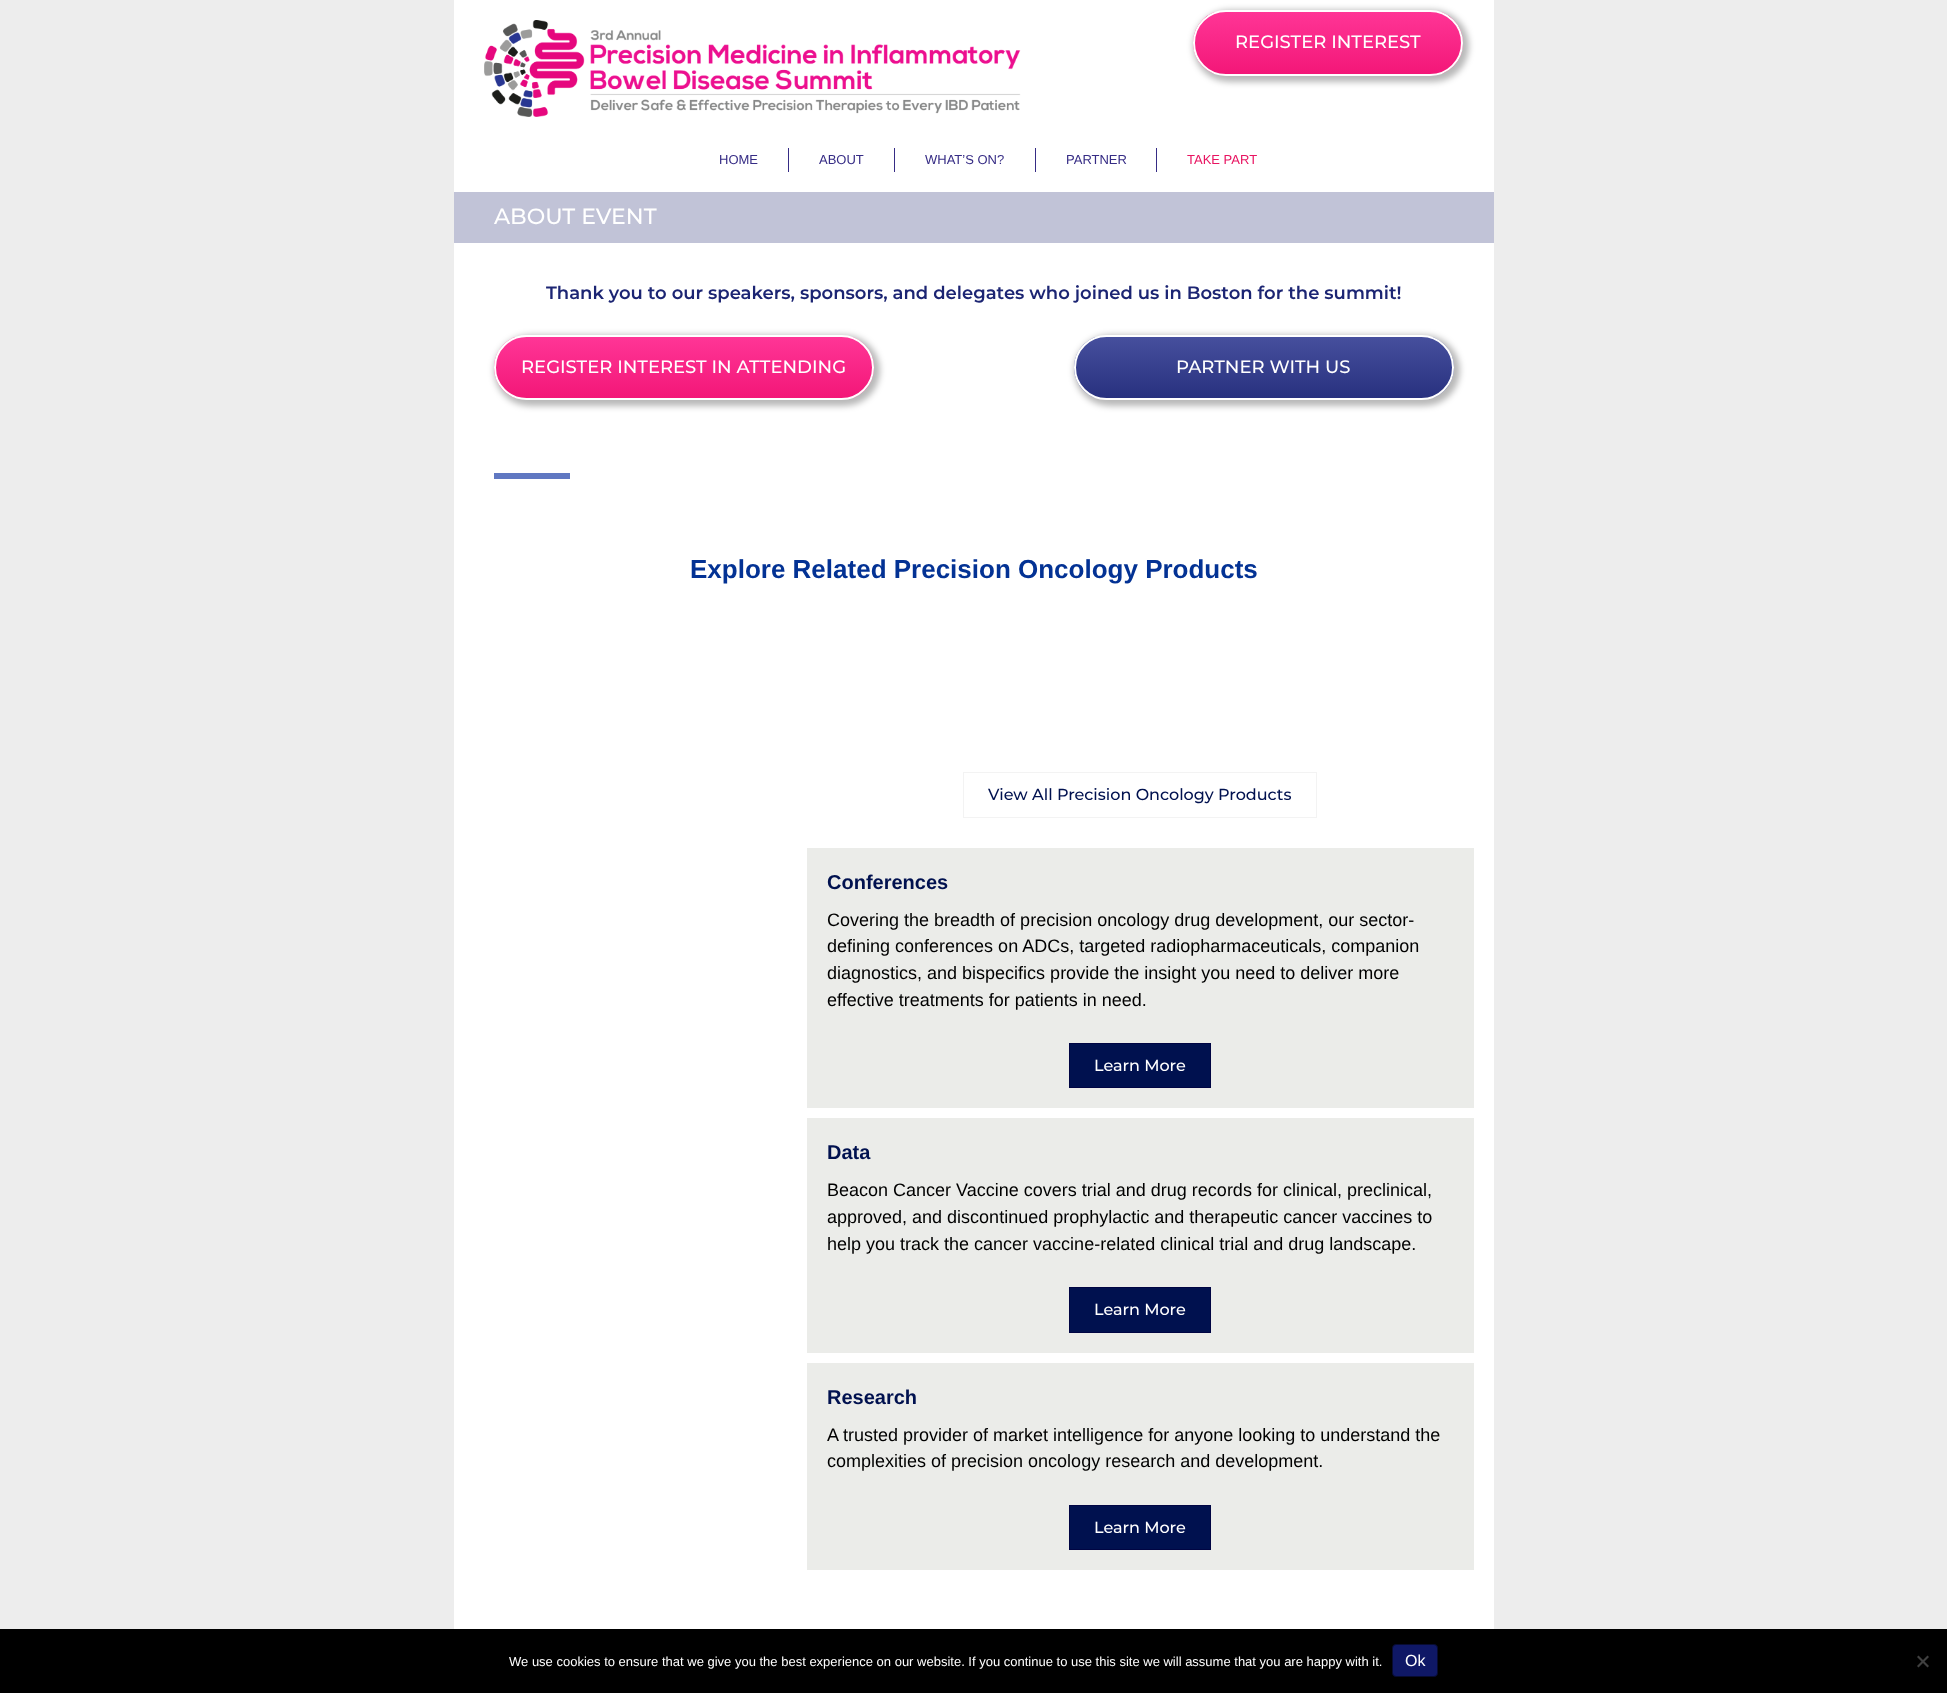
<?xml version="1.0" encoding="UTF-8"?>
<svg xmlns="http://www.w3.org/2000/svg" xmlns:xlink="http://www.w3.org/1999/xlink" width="1947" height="1693">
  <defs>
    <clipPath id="clip1"><rect x="1193" y="10" width="270" height="66" rx="33" /></clipPath>
    <linearGradient id="g1" gradientUnits="userSpaceOnUse" x1="1328" y1="12" x2="1328" y2="74"><stop offset="0" stop-color="#ff3596" /><stop offset="1" stop-color="#f31778" /></linearGradient>
    <clipPath id="clip2"><rect x="494" y="335" width="380" height="65" rx="32.5" /></clipPath>
    <linearGradient id="g2" gradientUnits="userSpaceOnUse" x1="684" y1="337" x2="684" y2="398"><stop offset="0" stop-color="#ff3596" /><stop offset="1" stop-color="#f31778" /></linearGradient>
    <clipPath id="clip3"><rect x="1074" y="335" width="380" height="65" rx="32.5" /></clipPath>
    <linearGradient id="g3" gradientUnits="userSpaceOnUse" x1="1264" y1="337" x2="1264" y2="398"><stop offset="0" stop-color="#464f9d" /><stop offset="1" stop-color="#28317f" /></linearGradient>
  </defs>
  <rect width="100%" height="100%" fill="#ededed" />
  <rect x="454" width="1040" height="192" fill="#ffffff" />
  <image x="484" y="20" width="537" height="97" xlink:href="image1.png" />
  <rect x="1193" y="10" width="276" height="72" rx="36" fill="#000000" fill-opacity="0.28" filter="blur(3px)" />
  <g clip-path="url(#clip1)">
    <rect x="1193" y="12" width="270" height="62" fill="url(#g1)" />
  </g>
  <rect x="1194" y="11" width="268" height="64" rx="32" fill="none" stroke="#ffffff" stroke-width="2" />
  <rect x="788" y="148" width="1" height="24" fill="#362c85" />
  <rect x="894" y="148" width="1" height="24" fill="#362c85" />
  <rect x="1035" y="148" width="1" height="24" fill="#362c85" />
  <rect x="1156" y="148" width="1" height="24" fill="#362c85" />
  <rect x="454" y="243" width="1040" height="1386" fill="#ffffff" />
  <rect x="454" y="192" width="1040" height="51" fill="#c1c3d7" />
  <rect x="494" y="335" width="386" height="71" rx="35.5" fill="#000000" fill-opacity="0.28" filter="blur(3px)" />
  <g clip-path="url(#clip2)">
    <rect x="494" y="337" width="380" height="61" fill="url(#g2)" />
  </g>
  <rect x="495" y="336" width="378" height="63" rx="31.5" fill="none" stroke="#ffffff" stroke-width="2" />
  <rect x="1074" y="335" width="386" height="71" rx="35.5" fill="#000000" fill-opacity="0.28" filter="blur(3px)" />
  <g clip-path="url(#clip3)">
    <rect x="1074" y="337" width="380" height="61" fill="url(#g3)" />
  </g>
  <rect x="1075" y="336" width="378" height="63" rx="31.5" fill="none" stroke="#ffffff" stroke-width="2" />
  <rect x="494" y="473" width="76" height="6" fill="#6078c2" />
  <rect x="963.5" y="772.5" width="353" height="45" fill="none" stroke="#f3f3f3" />
  <rect x="807" y="848" width="667" height="260" fill="#ebece9" />
  <rect x="1069.5" y="1043.5" width="141" height="44" fill="#00114f" stroke="#000543" />
  <rect x="807" y="1118" width="667" height="235" fill="#ebece9" />
  <rect x="1069.5" y="1287.5" width="141" height="45" fill="#00114f" stroke="#000543" />
  <rect x="807" y="1363" width="667" height="207" fill="#ebece9" />
  <rect x="1069.5" y="1505.5" width="141" height="44" fill="#00114f" stroke="#000543" />
  <rect y="1629" width="1947" height="64" fill="#000000" />
  <rect x="1392.5" y="1644.5" width="45" height="32" rx="3.5" fill="#0f1866" stroke="#070b31" />
  <path d="M 1927.5 1655.5 l 1.5 1.5 l -10.5 10.5 l -1.5 -1.5 z" fill="#404040" />
  <path d="M 1917 1657 l 1.5 -1.5 l 10.5 10.5 l -1.5 1.5 z" fill="#404040" />
  <text x="1235" y="48" style="font-family: Montserrat; font-size: 18px; font-weight: 500; fill: #ffffff">REGISTER INTEREST</text>
  <text x="719" y="164" style="font-family: Liberation Sans; font-size: 13px; fill: #362c85">HOME</text>
  <text x="819" y="164" style="font-family: Liberation Sans; font-size: 13px; fill: #362c85">ABOUT</text>
  <text x="925" y="164" style="font-family: Liberation Sans; font-size: 13px; fill: #362c85">WHAT’S ON?</text>
  <text x="1066" y="164" style="font-family: Liberation Sans; font-size: 13px; fill: #362c85">PARTNER</text>
  <text x="1187" y="164" style="font-family: Liberation Sans; font-size: 13px; fill: #e81461">TAKE PART</text>
  <text x="494" y="224" style="font-family: Montserrat; font-size: 22px; font-weight: 500; fill: #ffffff">ABOUT EVENT</text>
  <text x="546" y="299" style="font-family: Montserrat; font-size: 18px; font-weight: 600; fill: #1c2573">Thank you to our speakers, sponsors, and delegates who joined us in Boston for the summit!</text>
  <text x="521" y="373" style="font-family: Montserrat; font-size: 18px; font-weight: 500; fill: #ffffff">REGISTER INTEREST IN ATTENDING</text>
  <text x="1176" y="373" style="font-family: Montserrat; font-size: 18px; font-weight: 500; fill: #ffffff">PARTNER WITH US</text>
  <text x="690" y="578" style="font-family: Liberation Sans; font-size: 26px; font-weight: bold; fill: #033294">Explore Related Precision Oncology Products</text>
  <text x="988" y="800" style="font-family: Montserrat; font-size: 16px; font-weight: 500; fill: #00114f">View All Precision Oncology Products</text>
  <text x="827" y="889" style="font-family: Liberation Sans; font-size: 20px; font-weight: bold; fill: #00114f">Conferences</text>
  <text x="827" y="926" style="font-family: Liberation Sans; font-size: 18px; fill: #000000">Covering the breadth of precision oncology drug development, our sector-</text>
  <text x="827" y="952" style="font-family: Liberation Sans; font-size: 18px; fill: #000000">defining conferences on ADCs, targeted radiopharmaceuticals, companion</text>
  <text x="827" y="979" style="font-family: Liberation Sans; font-size: 18px; fill: #000000">diagnostics, and bispecifics provide the insight you need to deliver more</text>
  <text x="827" y="1006" style="font-family: Liberation Sans; font-size: 18px; fill: #000000">effective treatments for patients in need.</text>
  <text x="1094" y="1071" style="font-family: Montserrat; font-size: 16px; font-weight: 500; fill: #ffffff">Learn More</text>
  <text x="827" y="1159" style="font-family: Liberation Sans; font-size: 20px; font-weight: bold; fill: #00114f">Data</text>
  <text x="827" y="1196" style="font-family: Liberation Sans; font-size: 18px; fill: #000000">Beacon Cancer Vaccine covers trial and drug records for clinical, preclinical,</text>
  <text x="827" y="1223" style="font-family: Liberation Sans; font-size: 18px; fill: #000000">approved, and discontinued prophylactic and therapeutic cancer vaccines to</text>
  <text x="827" y="1250" style="font-family: Liberation Sans; font-size: 18px; fill: #000000">help you track the cancer vaccine-related clinical trial and drug landscape.</text>
  <text x="1094" y="1315" style="font-family: Montserrat; font-size: 16px; font-weight: 500; fill: #ffffff">Learn More</text>
  <text x="827" y="1404" style="font-family: Liberation Sans; font-size: 20px; font-weight: bold; fill: #00114f">Research</text>
  <text x="827" y="1441" style="font-family: Liberation Sans; font-size: 18px; fill: #000000">A trusted provider of market intelligence for anyone looking to understand the</text>
  <text x="827" y="1467" style="font-family: Liberation Sans; font-size: 18px; fill: #000000">complexities of precision oncology research and development.</text>
  <text x="1094" y="1533" style="font-family: Montserrat; font-size: 16px; font-weight: 500; fill: #ffffff">Learn More</text>
  <text x="509" y="1666" style="font-family: Liberation Sans; font-size: 13px; fill: #ffffff">We use cookies to ensure that we give you the best experience on our website. If you continue to use this site we will assume that you are happy with it.</text>
  <text x="1405" y="1666" style="font-family: Liberation Sans; font-size: 16px; fill: #ffffff">Ok</text>
</svg>
